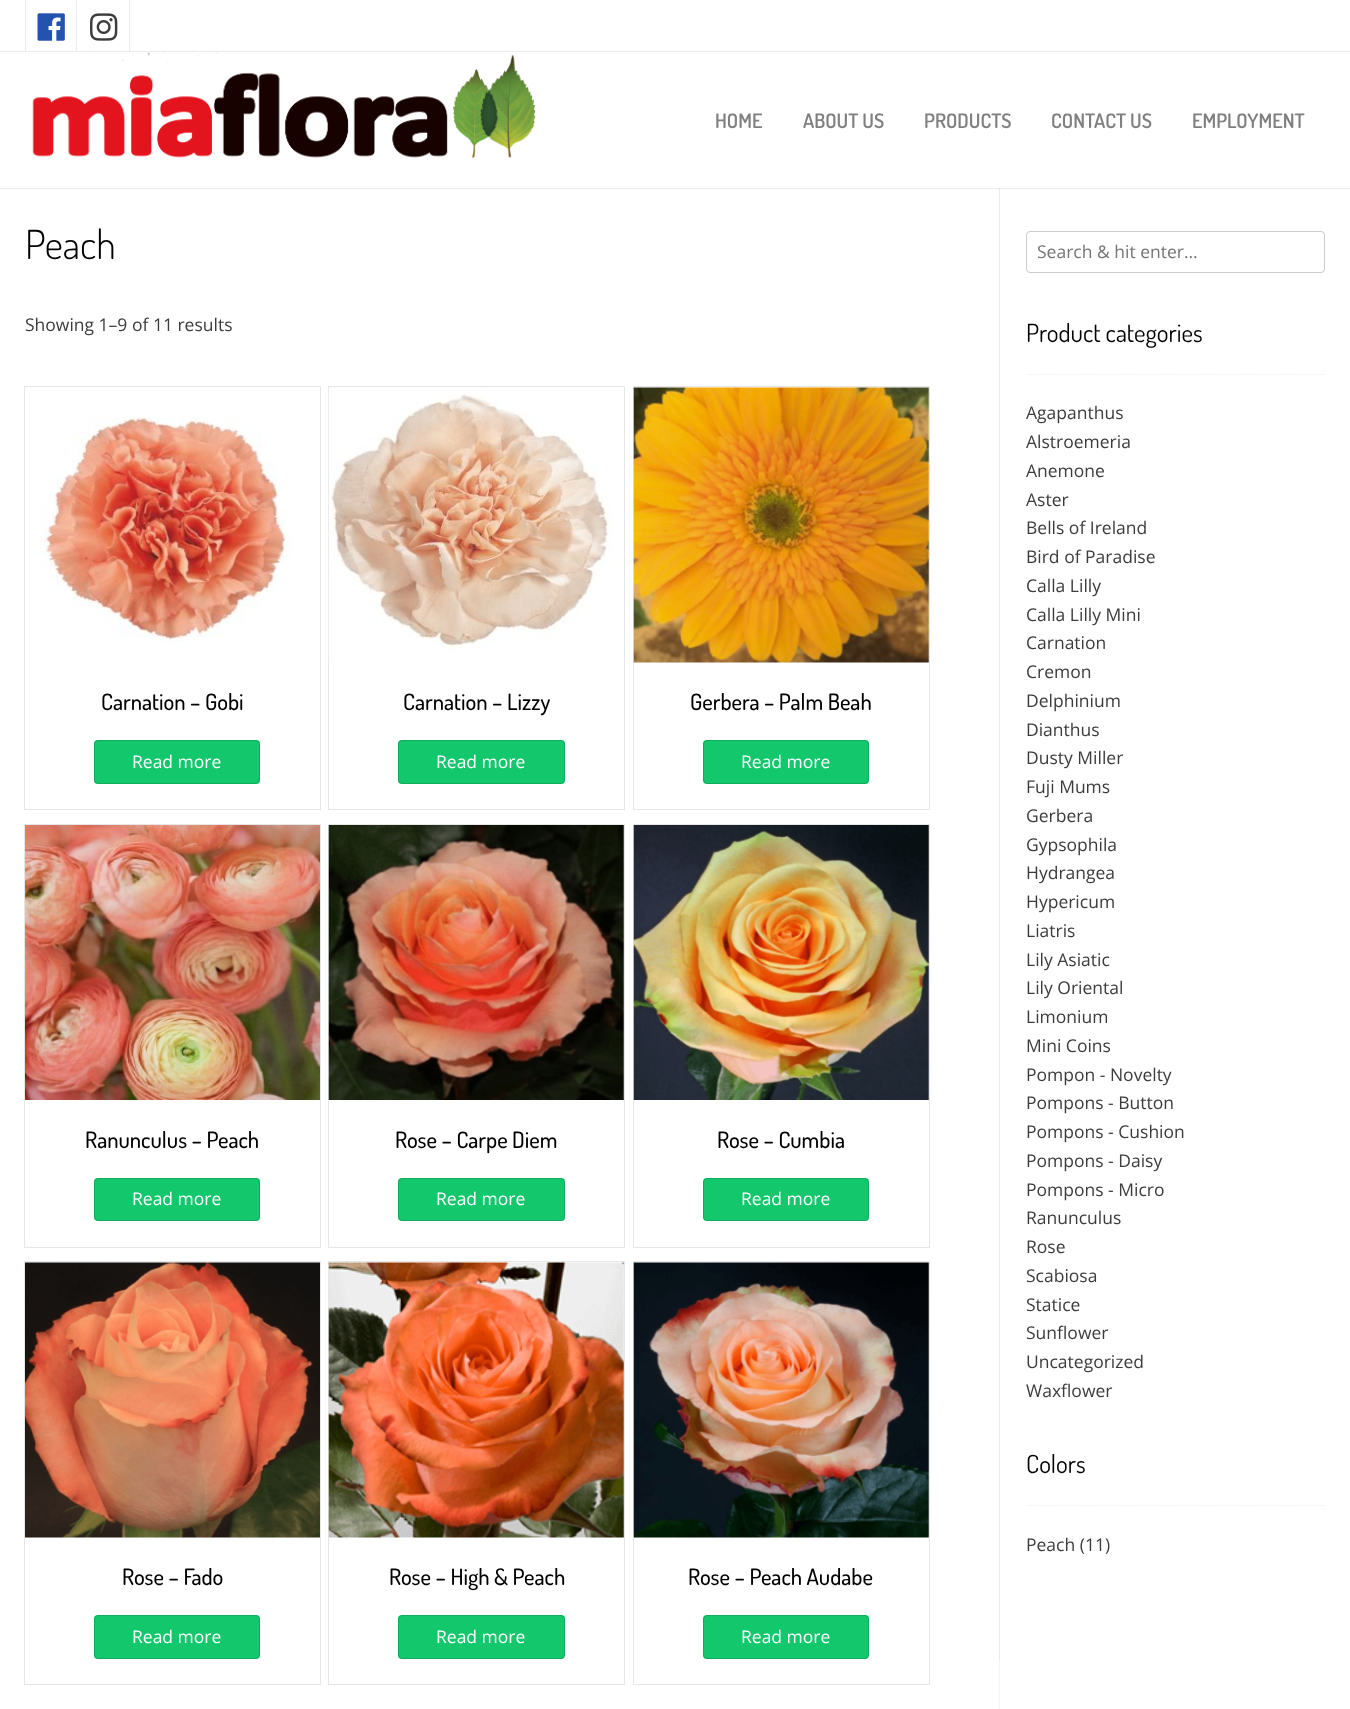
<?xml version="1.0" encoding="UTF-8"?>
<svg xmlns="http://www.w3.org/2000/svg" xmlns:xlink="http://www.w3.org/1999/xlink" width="1350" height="1709">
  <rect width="100%" height="100%" fill="#ffffff" />
  <rect y="51" width="1350" height="1" fill="#ebebeb" />
  <rect x="25" width="1" height="51" fill="#ebebeb" />
  <rect x="76" width="1" height="51" fill="#ebebeb" />
  <image x="37" y="13" width="28" height="28" xlink:href="image1.png" />
  <rect x="129" width="1" height="51" fill="#ebebeb" />
  <image x="90" y="13" width="28" height="28" xlink:href="image2.png" />
  <path d="M 999 188 v 1471 h 325 h -324 v -1471 z" fill="#f5f5f5" />
  <rect y="188" width="1350" height="1" fill="#000000" fill-opacity="0.08" />
  <image x="32" y="52" width="504" height="107" xlink:href="image3.png" />
  <rect x="999" y="188" width="1" height="1521" fill="#000000" fill-opacity="0.04" />
  <rect x="24.5" y="386.5" width="296" height="423" fill="none" stroke="#e6e6e6" />
  <image x="41" y="417" width="251" height="226" xlink:href="image4.png" />
  <rect x="94" y="740" width="166" height="44" rx="4" fill="#13c76d" />
  <rect x="94.5" y="740.5" width="165" height="43" rx="3.5" fill="none" stroke="#000000" stroke-opacity="0.14" />
  <rect x="328.5" y="386.5" width="296" height="423" fill="none" stroke="#e6e6e6" />
  <image x="328" y="388" width="284" height="274" xlink:href="image5.png" />
  <rect x="398" y="740" width="167" height="44" rx="4" fill="#13c76d" />
  <rect x="398.5" y="740.5" width="166" height="43" rx="3.5" fill="none" stroke="#000000" stroke-opacity="0.14" />
  <rect x="633.5" y="386.5" width="296" height="423" fill="none" stroke="#e6e6e6" />
  <image x="633" y="387" width="296" height="276" xlink:href="image6.png" />
  <rect x="703" y="740" width="166" height="44" rx="4" fill="#13c76d" />
  <rect x="703.5" y="740.5" width="165" height="43" rx="3.5" fill="none" stroke="#000000" stroke-opacity="0.14" />
  <rect x="24.5" y="824.5" width="296" height="423" fill="none" stroke="#e6e6e6" />
  <image x="25" y="825" width="295" height="275" xlink:href="image7.png" />
  <rect x="94" y="1178" width="166" height="43" rx="4" fill="#13c76d" />
  <rect x="94.5" y="1178.5" width="165" height="42" rx="3.5" fill="none" stroke="#000000" stroke-opacity="0.14" />
  <rect x="328.5" y="824.5" width="296" height="423" fill="none" stroke="#e6e6e6" />
  <image x="328" y="825" width="296" height="275" xlink:href="image8.png" />
  <rect x="398" y="1178" width="167" height="43" rx="4" fill="#13c76d" />
  <rect x="398.5" y="1178.5" width="166" height="42" rx="3.5" fill="none" stroke="#000000" stroke-opacity="0.14" />
  <rect x="633.5" y="824.5" width="296" height="423" fill="none" stroke="#e6e6e6" />
  <image x="633" y="825" width="296" height="275" xlink:href="image9.png" />
  <rect x="703" y="1178" width="166" height="43" rx="4" fill="#13c76d" />
  <rect x="703.5" y="1178.5" width="165" height="42" rx="3.5" fill="none" stroke="#000000" stroke-opacity="0.14" />
  <rect x="24.5" y="1261.5" width="296" height="423" fill="none" stroke="#e6e6e6" />
  <image x="25" y="1262" width="295" height="276" xlink:href="image10.png" />
  <rect x="94" y="1615" width="166" height="44" rx="4" fill="#13c76d" />
  <rect x="94.5" y="1615.5" width="165" height="43" rx="3.5" fill="none" stroke="#000000" stroke-opacity="0.14" />
  <rect x="328.5" y="1261.5" width="296" height="423" fill="none" stroke="#e6e6e6" />
  <image x="328" y="1262" width="296" height="276" xlink:href="image11.png" />
  <rect x="398" y="1615" width="167" height="44" rx="4" fill="#13c76d" />
  <rect x="398.5" y="1615.5" width="166" height="43" rx="3.5" fill="none" stroke="#000000" stroke-opacity="0.14" />
  <rect x="633.5" y="1261.5" width="296" height="423" fill="none" stroke="#e6e6e6" />
  <image x="633" y="1262" width="296" height="276" xlink:href="image12.png" />
  <rect x="703" y="1615" width="166" height="44" rx="4" fill="#13c76d" />
  <rect x="703.5" y="1615.5" width="165" height="43" rx="3.5" fill="none" stroke="#000000" stroke-opacity="0.14" />
  <rect x="1026.5" y="231.5" width="298" height="41" rx="3.5" fill="none" stroke="#cccccc" />
  <path d="M 1026 374.5 h 299" fill="none" stroke="#efefef" stroke-width="1.2" stroke-dasharray="1.25 1.25" />
  <path d="M 1026 1505.5 h 299" fill="none" stroke="#efefef" stroke-width="1.2" stroke-dasharray="1.25 1.25" />
  <text x="715" y="128" style="font-family: Dosis; font-size: 20px; font-weight: 600; fill: #808080">HOME</text>
  <text x="803" y="128" style="font-family: Dosis; font-size: 20px; font-weight: 600; fill: #808080">ABOUT US</text>
  <text x="924" y="128" style="font-family: Dosis; font-size: 20px; font-weight: 600; fill: #808080">PRODUCTS</text>
  <text x="1051" y="128" style="font-family: Dosis; font-size: 20px; font-weight: 600; fill: #808080">CONTACT US</text>
  <text x="1192" y="128" style="font-family: Dosis; font-size: 20px; font-weight: 600; fill: #808080">EMPLOYMENT</text>
  <text x="25" y="259" style="font-family: Dosis; font-size: 40px; font-weight: 300; fill: #000000">Peach</text>
  <text x="25" y="331" style="font-family: Open Sans; font-size: 17.5px; fill: #3c3c3c">Showing 1–9 of 11 results</text>
  <text x="101" y="710" style="font-family: Dosis; font-size: 22.5px; font-weight: 500; fill: #000000">Carnation – Gobi</text>
  <text x="132" y="768" style="font-family: Open Sans; font-size: 17.5px; fill: #ffffff">Read more</text>
  <text x="403" y="710" style="font-family: Dosis; font-size: 22.5px; font-weight: 500; fill: #000000">Carnation – Lizzy</text>
  <text x="436" y="768" style="font-family: Open Sans; font-size: 17.5px; fill: #ffffff">Read more</text>
  <text x="690" y="710" style="font-family: Dosis; font-size: 22.5px; font-weight: 500; fill: #000000">Gerbera – Palm Beah</text>
  <text x="741" y="768" style="font-family: Open Sans; font-size: 17.5px; fill: #ffffff">Read more</text>
  <text x="85" y="1148" style="font-family: Dosis; font-size: 22.5px; font-weight: 500; fill: #000000">Ranunculus – Peach</text>
  <text x="132" y="1205" style="font-family: Open Sans; font-size: 17.5px; fill: #ffffff">Read more</text>
  <text x="395" y="1148" style="font-family: Dosis; font-size: 22.5px; font-weight: 500; fill: #000000">Rose – Carpe Diem</text>
  <text x="436" y="1205" style="font-family: Open Sans; font-size: 17.5px; fill: #ffffff">Read more</text>
  <text x="717" y="1148" style="font-family: Dosis; font-size: 22.5px; font-weight: 500; fill: #000000">Rose – Cumbia</text>
  <text x="741" y="1205" style="font-family: Open Sans; font-size: 17.5px; fill: #ffffff">Read more</text>
  <text x="122" y="1585" style="font-family: Dosis; font-size: 22.5px; font-weight: 500; fill: #000000">Rose – Fado</text>
  <text x="132" y="1643" style="font-family: Open Sans; font-size: 17.5px; fill: #ffffff">Read more</text>
  <text x="389" y="1585" style="font-family: Dosis; font-size: 22.5px; font-weight: 500; fill: #000000">Rose – High &amp; Peach</text>
  <text x="436" y="1643" style="font-family: Open Sans; font-size: 17.5px; fill: #ffffff">Read more</text>
  <text x="688" y="1585" style="font-family: Dosis; font-size: 22.5px; font-weight: 500; fill: #000000">Rose – Peach Audabe</text>
  <text x="741" y="1643" style="font-family: Open Sans; font-size: 17.5px; fill: #ffffff">Read more</text>
  <text x="1037" y="258" style="font-family: Open Sans; font-size: 17.5px; fill: #757575">Search &amp; hit enter…</text>
  <text x="1026" y="342" style="font-family: Dosis; font-size: 25px; fill: #000000">Product categories</text>
  <text x="1026" y="419" style="font-family: Open Sans; font-size: 17.5px; fill: #3c3c3c">Agapanthus</text>
  <text x="1026" y="448" style="font-family: Open Sans; font-size: 17.5px; fill: #3c3c3c">Alstroemeria</text>
  <text x="1026" y="477" style="font-family: Open Sans; font-size: 17.5px; fill: #3c3c3c">Anemone</text>
  <text x="1026" y="506" style="font-family: Open Sans; font-size: 17.5px; fill: #3c3c3c">Aster</text>
  <text x="1026" y="534" style="font-family: Open Sans; font-size: 17.5px; fill: #3c3c3c">Bells of Ireland</text>
  <text x="1026" y="563" style="font-family: Open Sans; font-size: 17.5px; fill: #3c3c3c">Bird of Paradise</text>
  <text x="1026" y="592" style="font-family: Open Sans; font-size: 17.5px; fill: #3c3c3c">Calla Lilly</text>
  <text x="1026" y="621" style="font-family: Open Sans; font-size: 17.5px; fill: #3c3c3c">Calla Lilly Mini</text>
  <text x="1026" y="649" style="font-family: Open Sans; font-size: 17.5px; fill: #3c3c3c">Carnation</text>
  <text x="1026" y="678" style="font-family: Open Sans; font-size: 17.5px; fill: #3c3c3c">Cremon</text>
  <text x="1026" y="707" style="font-family: Open Sans; font-size: 17.5px; fill: #3c3c3c">Delphinium</text>
  <text x="1026" y="736" style="font-family: Open Sans; font-size: 17.5px; fill: #3c3c3c">Dianthus</text>
  <text x="1026" y="764" style="font-family: Open Sans; font-size: 17.5px; fill: #3c3c3c">Dusty Miller</text>
  <text x="1026" y="793" style="font-family: Open Sans; font-size: 17.5px; fill: #3c3c3c">Fuji Mums</text>
  <text x="1026" y="822" style="font-family: Open Sans; font-size: 17.5px; fill: #3c3c3c">Gerbera</text>
  <text x="1026" y="851" style="font-family: Open Sans; font-size: 17.5px; fill: #3c3c3c">Gypsophila</text>
  <text x="1026" y="879" style="font-family: Open Sans; font-size: 17.5px; fill: #3c3c3c">Hydrangea</text>
  <text x="1026" y="908" style="font-family: Open Sans; font-size: 17.5px; fill: #3c3c3c">Hypericum</text>
  <text x="1026" y="937" style="font-family: Open Sans; font-size: 17.5px; fill: #3c3c3c">Liatris</text>
  <text x="1026" y="966" style="font-family: Open Sans; font-size: 17.5px; fill: #3c3c3c">Lily Asiatic</text>
  <text x="1026" y="994" style="font-family: Open Sans; font-size: 17.5px; fill: #3c3c3c">Lily Oriental</text>
  <text x="1026" y="1023" style="font-family: Open Sans; font-size: 17.5px; fill: #3c3c3c">Limonium</text>
  <text x="1026" y="1052" style="font-family: Open Sans; font-size: 17.5px; fill: #3c3c3c">Mini Coins</text>
  <text x="1026" y="1081" style="font-family: Open Sans; font-size: 17.5px; fill: #3c3c3c">Pompon - Novelty</text>
  <text x="1026" y="1109" style="font-family: Open Sans; font-size: 17.5px; fill: #3c3c3c">Pompons - Button</text>
  <text x="1026" y="1138" style="font-family: Open Sans; font-size: 17.5px; fill: #3c3c3c">Pompons - Cushion</text>
  <text x="1026" y="1167" style="font-family: Open Sans; font-size: 17.5px; fill: #3c3c3c">Pompons - Daisy</text>
  <text x="1026" y="1196" style="font-family: Open Sans; font-size: 17.5px; fill: #3c3c3c">Pompons - Micro</text>
  <text x="1026" y="1224" style="font-family: Open Sans; font-size: 17.5px; fill: #3c3c3c">Ranunculus</text>
  <text x="1026" y="1253" style="font-family: Open Sans; font-size: 17.5px; fill: #3c3c3c">Rose</text>
  <text x="1026" y="1282" style="font-family: Open Sans; font-size: 17.5px; fill: #3c3c3c">Scabiosa</text>
  <text x="1026" y="1311" style="font-family: Open Sans; font-size: 17.5px; fill: #3c3c3c">Statice</text>
  <text x="1026" y="1339" style="font-family: Open Sans; font-size: 17.5px; fill: #3c3c3c">Sunflower</text>
  <text x="1026" y="1368" style="font-family: Open Sans; font-size: 17.5px; fill: #3c3c3c">Uncategorized</text>
  <text x="1026" y="1397" style="font-family: Open Sans; font-size: 17.5px; fill: #3c3c3c">Waxflower</text>
  <text x="1026" y="1473" style="font-family: Dosis; font-size: 25px; fill: #000000">Colors</text>
  <text x="1026" y="1551" style="font-family: Open Sans; font-size: 17.5px; fill: #3c3c3c">Peach (11)</text>
</svg>
